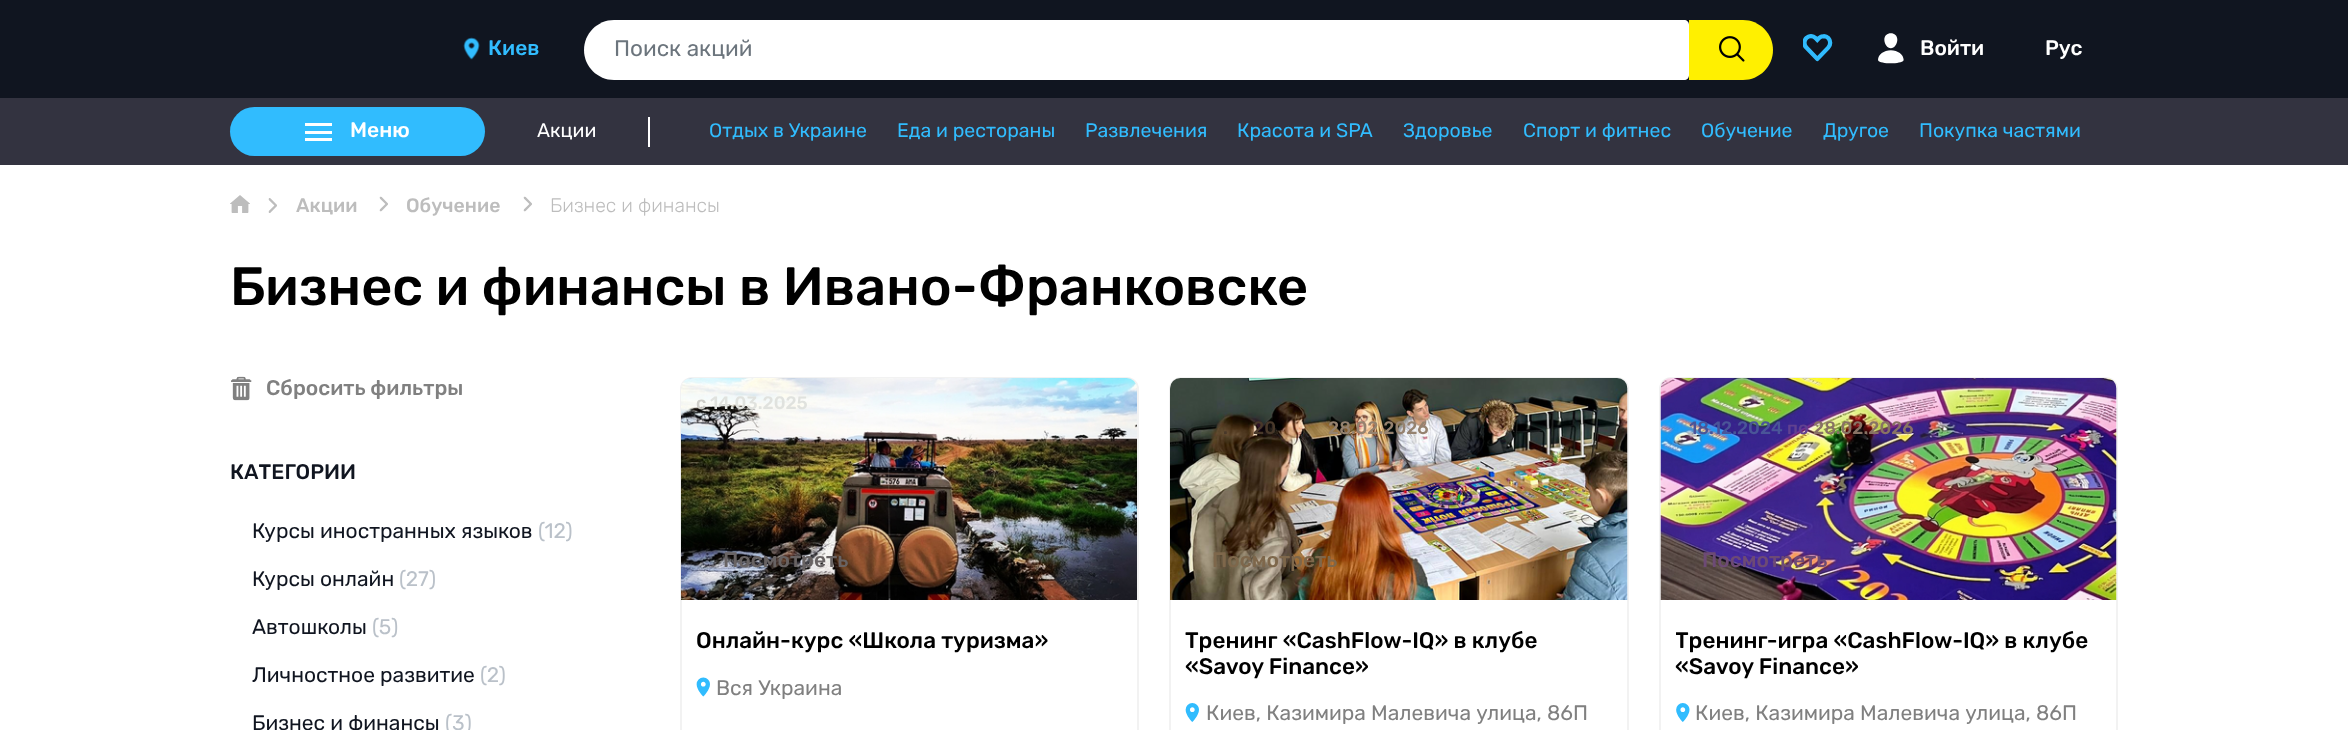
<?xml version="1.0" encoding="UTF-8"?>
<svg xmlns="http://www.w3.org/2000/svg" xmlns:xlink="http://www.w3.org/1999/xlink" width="2348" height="730">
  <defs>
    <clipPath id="clip1"><rect x="1676" y="629" width="426" height="51" /></clipPath>
  </defs>
  <rect width="100%" height="100%" fill="#ffffff" />
  <rect width="2348" height="98" fill="#101520" />
  <image x="463" y="37" width="17" height="23" xlink:href="image1.png" />
  <path d="M 614 20 h 1070 c 3 0 5 2 5 5 v 50 c 0 3 -2 5 -5 5 h -1070 c -16.5 0 -30 -13.5 -30 -30 c 0 -16.5 13.5 -30 30 -30 z" fill="#ffffff" />
  <path d="M 1689 20 h 54 c 16.5 0 30 13.5 30 30 c 0 16.5 -13.5 30 -30 30 h -54 z" fill="#fff000" />
  <image x="1719" y="36" width="26" height="26" xlink:href="image2.png" />
  <image x="1803" y="34" width="30" height="28" xlink:href="image3.png" />
  <image x="1878" y="33" width="26" height="31" xlink:href="image4.png" />
  <rect y="98" width="2348" height="67" fill="#333340" />
  <rect x="230" y="107" width="255" height="49" rx="24.5" fill="#31bcfe" />
  <rect x="305" y="131" width="27" height="3" fill="#ffffff" />
  <rect x="305" y="123" width="27" height="3" fill="#ffffff" />
  <rect x="305" y="138" width="27" height="3" fill="#ffffff" />
  <rect x="648" y="117" width="2" height="30" fill="#ffffff" />
  <image x="230" y="195" width="20" height="18" xlink:href="image5.png" />
  <image x="268" y="198" width="9" height="15" xlink:href="image6.png" />
  <image x="379" y="196" width="9" height="16" xlink:href="image7.png" />
  <image x="523" y="196" width="9" height="16" xlink:href="image7.png" />
  <image x="231" y="376" width="21" height="25" xlink:href="image8.png" />
  <rect x="681" y="378" width="457" height="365" rx="11" fill="none" stroke="#f2f2f2" stroke-width="2" />
  <image x="681" y="378" width="456" height="222" xlink:href="image9.png" />
  <image x="696" y="677" width="14" height="20" xlink:href="image10.png" />
  <rect x="1170" y="378" width="458" height="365" rx="11" fill="none" stroke="#f2f2f2" stroke-width="2" />
  <image x="1170" y="378" width="458" height="222" xlink:href="image11.png" />
  <image x="1185" y="703" width="14" height="19" xlink:href="image12.png" />
  <rect x="1660" y="378" width="457" height="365" rx="11" fill="none" stroke="#f2f2f2" stroke-width="2" />
  <image x="1660" y="378" width="457" height="222" xlink:href="image13.png" />
  <image x="1676" y="703" width="14" height="19" xlink:href="image14.png" />
  <text x="488" y="55" style="font-family: Rubik; font-size: 21px; font-weight: 500; fill: #31bcfe">Киев</text>
  <text x="614" y="56" style="font-family: Rubik; font-size: 22.5px; fill: #6c757d">Поиск акций</text>
  <text x="1920" y="55" style="font-family: Rubik; font-size: 21px; font-weight: 500; fill: #ffffff">Войти</text>
  <text x="2045" y="55" style="font-family: Rubik; font-size: 21px; font-weight: 500; fill: #ffffff">Рус</text>
  <text x="350" y="137" style="font-family: Rubik; font-size: 21px; font-weight: 500; fill: #ffffff">Меню</text>
  <text x="537" y="137" style="font-family: Rubik; font-size: 19.5px; fill: #ffffff">Акции</text>
  <text x="709" y="137" style="font-family: Rubik; font-size: 19.5px; fill: #31bcfe">Отдых в Украине</text>
  <text x="897" y="137" style="font-family: Rubik; font-size: 19.5px; fill: #31bcfe">Еда и рестораны</text>
  <text x="1085" y="137" style="font-family: Rubik; font-size: 19.5px; fill: #31bcfe">Развлечения</text>
  <text x="1237" y="137" style="font-family: Rubik; font-size: 19.5px; fill: #31bcfe">Красота и SPA</text>
  <text x="1403" y="137" style="font-family: Rubik; font-size: 19.5px; fill: #31bcfe">Здоровье</text>
  <text x="1523" y="137" style="font-family: Rubik; font-size: 19.5px; fill: #31bcfe">Спорт и фитнес</text>
  <text x="1701" y="137" style="font-family: Rubik; font-size: 19.5px; fill: #31bcfe">Обучение</text>
  <text x="1823" y="137" style="font-family: Rubik; font-size: 19.5px; fill: #31bcfe">Другое</text>
  <text x="1919" y="137" style="font-family: Rubik; font-size: 19.5px; fill: #31bcfe">Покупка частями</text>
  <text x="296" y="212" style="font-family: Rubik; font-size: 19.5px; font-weight: 500; fill: #bdbdbd">Акции</text>
  <text x="406" y="212" style="font-family: Rubik; font-size: 19.5px; font-weight: 500; fill: #bdbdbd">Обучение</text>
  <text x="550" y="212" style="font-family: Rubik; font-size: 19.5px; font-weight: 300; fill: #bdbdbd">Бизнес и финансы</text>
  <text x="230" y="305" style="font-family: Rubik; font-size: 54px; font-weight: 500; fill: #000000">Бизнес и финансы в Ивано-Франковске</text>
  <text x="266" y="395" style="font-family: Rubik; font-size: 21px; font-weight: 500; fill: #808080">Сбросить фильтры</text>
  <text x="230" y="479" style="font-family: Rubik; font-size: 21px; font-weight: 500; fill: #101520">КАТЕГОРИИ</text>
  <text x="252" y="538" style="font-family: Rubik; font-size: 21px; fill: #101520">Курсы иностранных языков</text>
  <text x="538" y="538" style="font-family: Rubik; font-size: 21px; fill: #bac1c9">(12)</text>
  <text x="252" y="586" style="font-family: Rubik; font-size: 21px; fill: #101520">Курсы онлайн</text>
  <text x="399" y="586" style="font-family: Rubik; font-size: 21px; fill: #bac1c9">(27)</text>
  <text x="252" y="634" style="font-family: Rubik; font-size: 21px; fill: #101520">Автошколы</text>
  <text x="372" y="634" style="font-family: Rubik; font-size: 21px; fill: #bac1c9">(5)</text>
  <text x="252" y="682" style="font-family: Rubik; font-size: 21px; fill: #101520">Личностное развитие</text>
  <text x="480" y="682" style="font-family: Rubik; font-size: 21px; fill: #bac1c9">(2)</text>
  <text x="252" y="730" style="font-family: Rubik; font-size: 21px; fill: #101520">Бизнес и финансы</text>
  <text x="445" y="730" style="font-family: Rubik; font-size: 21px; fill: #bac1c9">(3)</text>
  <text x="696" y="409" style="font-family: Rubik; font-size: 18px; font-weight: 500; fill: #cecdc8">с</text>
  <text x="710" y="409" style="font-family: Rubik; font-size: 18px; font-weight: 500; fill: #e0e2de">14.03.2025</text>
  <text x="723" y="567" style="font-family: Rubik; font-size: 21px; font-weight: 500; fill: #686363">Посмотреть</text>
  <text x="696" y="648" style="font-family: Rubik; font-size: 22.5px; font-weight: 500; fill: #000000">Онлайн-курс «Школа туризма»</text>
  <text x="716" y="695" style="font-family: Rubik; font-size: 21px; fill: #808080">Вся Украина</text>
  <text x="1223" y="434" style="font-family: Rubik; font-size: 18px; font-weight: 500; fill: #48382a">.</text>
  <text x="1253" y="434" style="font-family: Rubik; font-size: 18px; font-weight: 500; fill: #48382a">20</text>
  <text x="1328" y="434" style="font-family: Rubik; font-size: 18px; font-weight: 500; fill: #95826f">28.02.2026</text>
  <text x="1212" y="567" style="font-family: Rubik; font-size: 21px; font-weight: 500; fill: #7e674b">Посмотреть</text>
  <text x="1185" y="648" style="font-family: Rubik; font-size: 22.5px; font-weight: 500; fill: #000000">Тренинг «CashFlow-IQ» в клубе</text>
  <text x="1185" y="674" style="font-family: Rubik; font-size: 22.5px; font-weight: 500; fill: #000000">«Savoy Finance»</text>
  <text x="1206" y="720" style="font-family: Rubik; font-size: 21px; fill: #808080">Киев, Казимира Малевича улица, 86П</text>
  <text x="1689" y="434" style="font-family: Rubik; font-size: 18px; font-weight: 500; fill: #4a5598">18.12.2024</text>
  <text x="1787" y="434" style="font-family: Rubik; font-size: 18px; font-weight: 500; fill: #614190">по</text>
  <text x="1813" y="434" style="font-family: Rubik; font-size: 18px; font-weight: 500; fill: #887264">28.02.2026</text>
  <text x="1702" y="567" style="font-family: Rubik; font-size: 21px; font-weight: 500; fill: #6d4a75">Посмотреть</text>
  <g clip-path="url(#clip1)">
    <text x="1675" y="648" style="font-family: Rubik; font-size: 22.5px; font-weight: 500; fill: #000000">Тренинг-игра «CashFlow-IQ» в клубе</text>
  </g>
  <text x="1675" y="674" style="font-family: Rubik; font-size: 22.5px; font-weight: 500; fill: #000000">«Savoy Finance»</text>
  <text x="1695" y="720" style="font-family: Rubik; font-size: 21px; fill: #808080">Киев, Казимира Малевича улица, 86П</text>
</svg>
